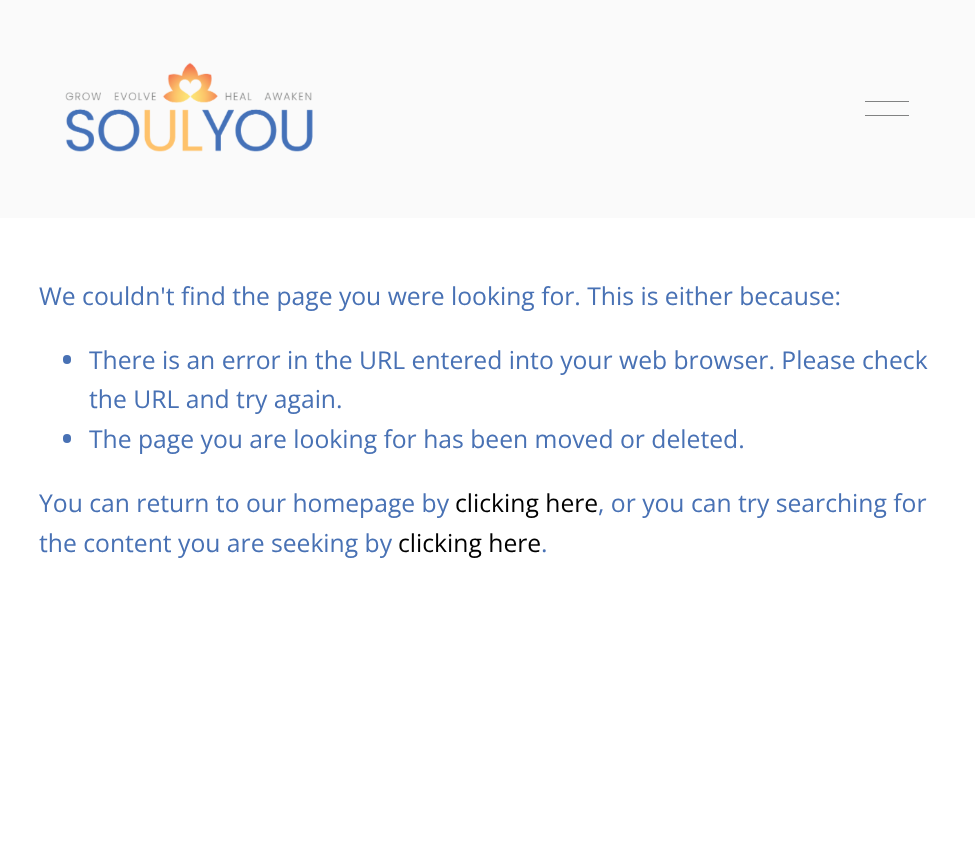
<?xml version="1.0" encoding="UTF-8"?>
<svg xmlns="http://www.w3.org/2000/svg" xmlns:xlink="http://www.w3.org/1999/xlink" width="975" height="866">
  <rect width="100%" height="100%" fill="#ffffff" />
  <rect width="975" height="218" fill="#fafafa" />
  <image x="65" y="62" width="248" height="90" xlink:href="image1.png" />
  <rect x="865" y="101" width="44" height="1" fill="#818282" />
  <rect x="865" y="115" width="44" height="1" fill="#818282" />
  <rect x="63" y="355" width="8" height="9" rx="4" fill="#4871b4" />
  <rect x="63" y="434" width="8" height="9" rx="4" fill="#4871b4" />
  <text x="39" y="305" style="font-family: Open Sans; font-size: 24.7px; fill: #4871b4">We couldn't find the page you were looking for. This is either because:</text>
  <text x="89" y="369" style="font-family: Open Sans; font-size: 24.7px; fill: #4871b4">There is an error in the URL entered into your web browser. Please check</text>
  <text x="89" y="408" style="font-family: Open Sans; font-size: 24.7px; fill: #4871b4">the URL and try again.</text>
  <text x="89" y="448" style="font-family: Open Sans; font-size: 24.7px; fill: #4871b4">The page you are looking for has been moved or deleted.</text>
  <text x="39" y="512" style="font-family: Open Sans; font-size: 24.7px; fill: #4871b4">You can return to our homepage by</text>
  <text x="455" y="512" style="font-family: Open Sans; font-size: 24.7px; fill: #000000">clicking here</text>
  <text x="598" y="512" style="font-family: Open Sans; font-size: 24.7px; fill: #4871b4">, or you can try searching for</text>
  <text x="39" y="552" style="font-family: Open Sans; font-size: 24.7px; fill: #4871b4">the content you are seeking by</text>
  <text x="398" y="552" style="font-family: Open Sans; font-size: 24.7px; fill: #000000">clicking here</text>
  <text x="541" y="552" style="font-family: Open Sans; font-size: 24.7px; fill: #4871b4">.</text>
</svg>
